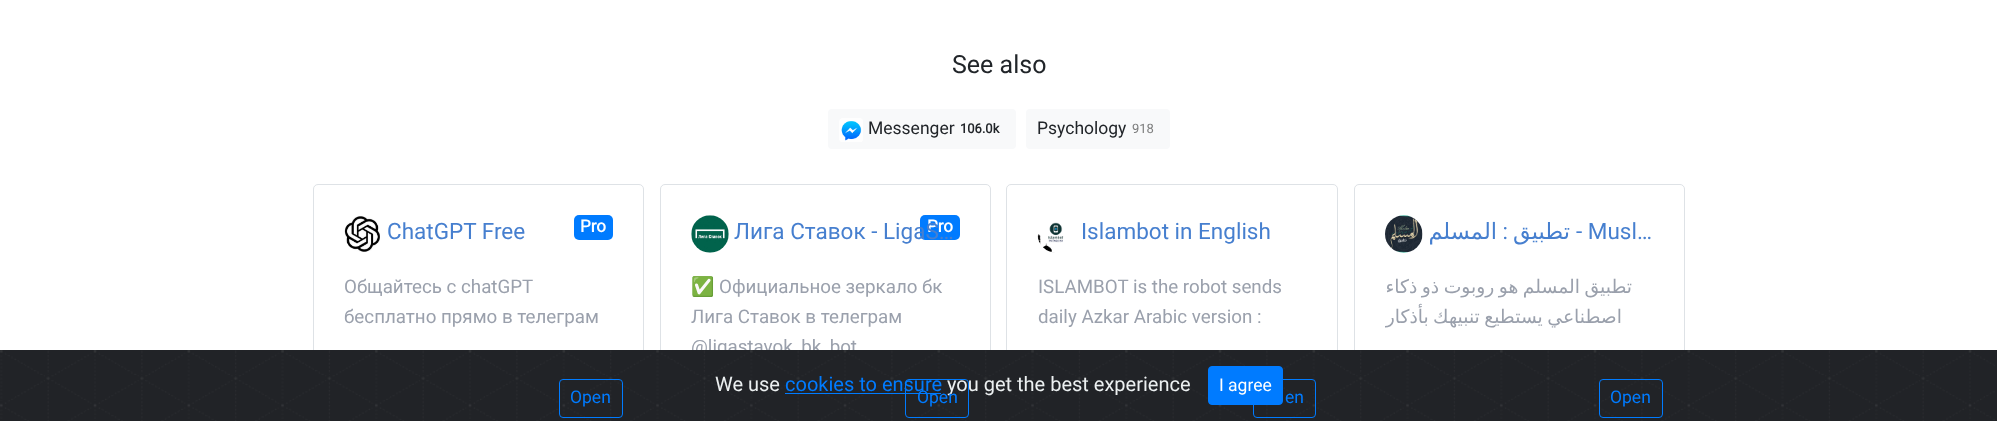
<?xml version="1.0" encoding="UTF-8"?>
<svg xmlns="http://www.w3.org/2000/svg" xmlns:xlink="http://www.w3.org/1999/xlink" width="1997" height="421">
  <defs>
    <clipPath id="clip1"><rect x="1385" y="273" width="269" height="92" /></clipPath>
  </defs>
  <rect width="100%" height="100%" fill="#ffffff" />
  <rect x="828" y="109" width="188" height="40" rx="4" fill="#f8f9fa" />
  <image x="839" y="118" width="24" height="24" xlink:href="image1.png" />
  <rect x="1026" y="109" width="144" height="40" rx="4" fill="#f8f9fa" />
  <rect x="313.5" y="184.5" width="330" height="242" rx="4.5" fill="none" stroke="#dee2e6" />
  <image x="344" y="216" width="36" height="36" xlink:href="image2.png" />
  <rect x="574" y="215" width="39" height="25" rx="5" fill="#007bff" />
  <rect x="660.5" y="184.5" width="330" height="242" rx="4.5" fill="none" stroke="#dee2e6" />
  <image x="691" y="215" width="38" height="38" xlink:href="image3.png" />
  <rect x="920" y="215" width="40" height="25" rx="5" fill="#007bff" />
  <rect x="1006.5" y="184.5" width="331" height="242" rx="4.5" fill="none" stroke="#dee2e6" />
  <image x="1037" y="222" width="27" height="31" xlink:href="image4.png" />
  <rect x="1354.5" y="184.5" width="330" height="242" rx="4.5" fill="none" stroke="#dee2e6" />
  <image x="1385" y="215" width="38" height="38" xlink:href="image5.png" />
  <rect x="1995" y="350" width="2" height="71" fill="#212327" />
  <text x="952" y="73" style="font-family: Roboto; font-size: 25px; fill: #212529">See also</text>
  <text x="868" y="134" style="font-family: Roboto; font-size: 17.5px; fill: #212529">Messenger</text>
  <text x="960" y="133" style="font-family: Roboto; font-size: 13px; font-weight: bold; fill: #212529">106.0k</text>
  <text x="1037" y="134" style="font-family: Roboto; font-size: 17.5px; fill: #212529">Psychology</text>
  <text x="1132" y="133" style="font-family: Roboto; font-size: 13px; fill: #7c7d7d">918</text>
  <text x="387" y="239" style="font-family: Roboto; font-size: 22.5px; fill: #467fcf">ChatGPT Free</text>
  <text x="580" y="232" style="font-family: Roboto; font-size: 17px; font-weight: bold; fill: #ffffff">Pro</text>
  <text x="344" y="293" style="font-family: Roboto; font-size: 18.75px; fill: #9aa0ac">Общайтесь с chatGPT</text>
  <text x="344" y="323" style="font-family: Roboto; font-size: 18.75px; fill: #9aa0ac">бесплатно прямо в телеграм</text>
  <text x="927" y="232" style="font-family: Roboto; font-size: 17px; font-weight: bold; fill: #ffffff">Pro</text>
  <text x="734" y="239" style="font-family: Roboto; font-size: 22.5px; fill: #467fcf">Лига Ставок - LigaS…</text>
  <text x="691" y="293" style="font-family: Noto Color Emoji; font-size: 18.75px; fill: #9aa0ac">✅</text>
  <text x="719" y="293" style="font-family: Roboto; font-size: 18.75px; fill: #9aa0ac">Официальное зеркало бк</text>
  <text x="691" y="323" style="font-family: Roboto; font-size: 18.75px; fill: #9aa0ac">Лига Ставок в телеграм</text>
  <text x="691" y="353" style="font-family: Roboto; font-size: 18.75px; fill: #9aa0ac">@ligastavok_bk_bot</text>
  <text x="1081" y="239" style="font-family: Roboto; font-size: 22.5px; fill: #467fcf">Islambot in English</text>
  <text x="1038" y="293" style="font-family: Roboto; font-size: 18.75px; fill: #9aa0ac">ISLAMBOT is the robot sends</text>
  <text x="1038" y="323" style="font-family: Roboto; font-size: 18.75px; fill: #9aa0ac">daily Azkar Arabic version :</text>
  <text x="1497" y="239" style="font-family: DejaVu Sans; font-size: 22.5px; direction: rtl; fill: #467fcf">المسلم</text>
  <text x="1508" y="239" style="font-family: Roboto; font-size: 22.5px; direction: rtl; fill: #467fcf">:</text>
  <text x="1570" y="239" style="font-family: DejaVu Sans; font-size: 22.5px; direction: rtl; fill: #467fcf">تطبيق</text>
  <text x="1576" y="239" style="font-family: Roboto; font-size: 22.5px; fill: #467fcf">- Musl…</text>
  <text x="1632" y="293" word-spacing="-1.5" style="font-family: DejaVu Sans; font-size: 18.75px; direction: rtl; fill: #9aa0ac">تطبيق المسلم هو روبوت ذو ذكاء</text>
  <g clip-path="url(#clip1)">
    <text x="1622" y="323" word-spacing="-1.5" style="font-family: DejaVu Sans; font-size: 18.75px; direction: rtl; fill: #9aa0ac">اصطناعي يستطيع تنبيهك بأذكار</text>
  </g>
  <image x="0" y="350" width="1995" height="71" xlink:href="image6.png" />
  <rect x="1599.5" y="379.5" width="63" height="38" rx="3.5" fill="none" stroke="#007bff" />
  <text x="1610" y="403" style="font-family: Roboto; font-size: 17.5px; fill: #007bff">Open</text>
  <rect x="559.5" y="379.5" width="63" height="38" rx="3.5" fill="none" stroke="#007bff" />
  <text x="570" y="403" style="font-family: Roboto; font-size: 17.5px; fill: #007bff">Open</text>
  <text x="715" y="391" style="font-family: Roboto; font-size: 20px; fill: #ecf0f1">We use</text>
  <text x="785" y="391" style="font-family: Roboto; font-size: 20px; fill: #007bff">cookies to ensure</text>
  <rect x="785" y="393" width="156" height="1" fill="#007bff" />
  <text x="947" y="391" style="font-family: Roboto; font-size: 20px; fill: #ecf0f1">you get the best experience</text>
  <rect x="905.5" y="379.5" width="63" height="38" rx="3.5" fill="none" stroke="#007bff" />
  <text x="917" y="403" style="font-family: Roboto; font-size: 17.5px; fill: #007bff">Open</text>
  <rect x="1208.5" y="366.5" width="74" height="38" rx="3.5" fill="#007bff" stroke="#007bff" />
  <text x="1219" y="391" style="font-family: Roboto; font-size: 17.5px; fill: #ffffff">I agree</text>
  <rect x="1253.5" y="379.5" width="62" height="38" rx="3.5" fill="none" stroke="#007bff" />
  <text x="1285" y="403" style="font-family: Roboto; font-size: 17.5px; fill: #007bff">en</text>
</svg>
